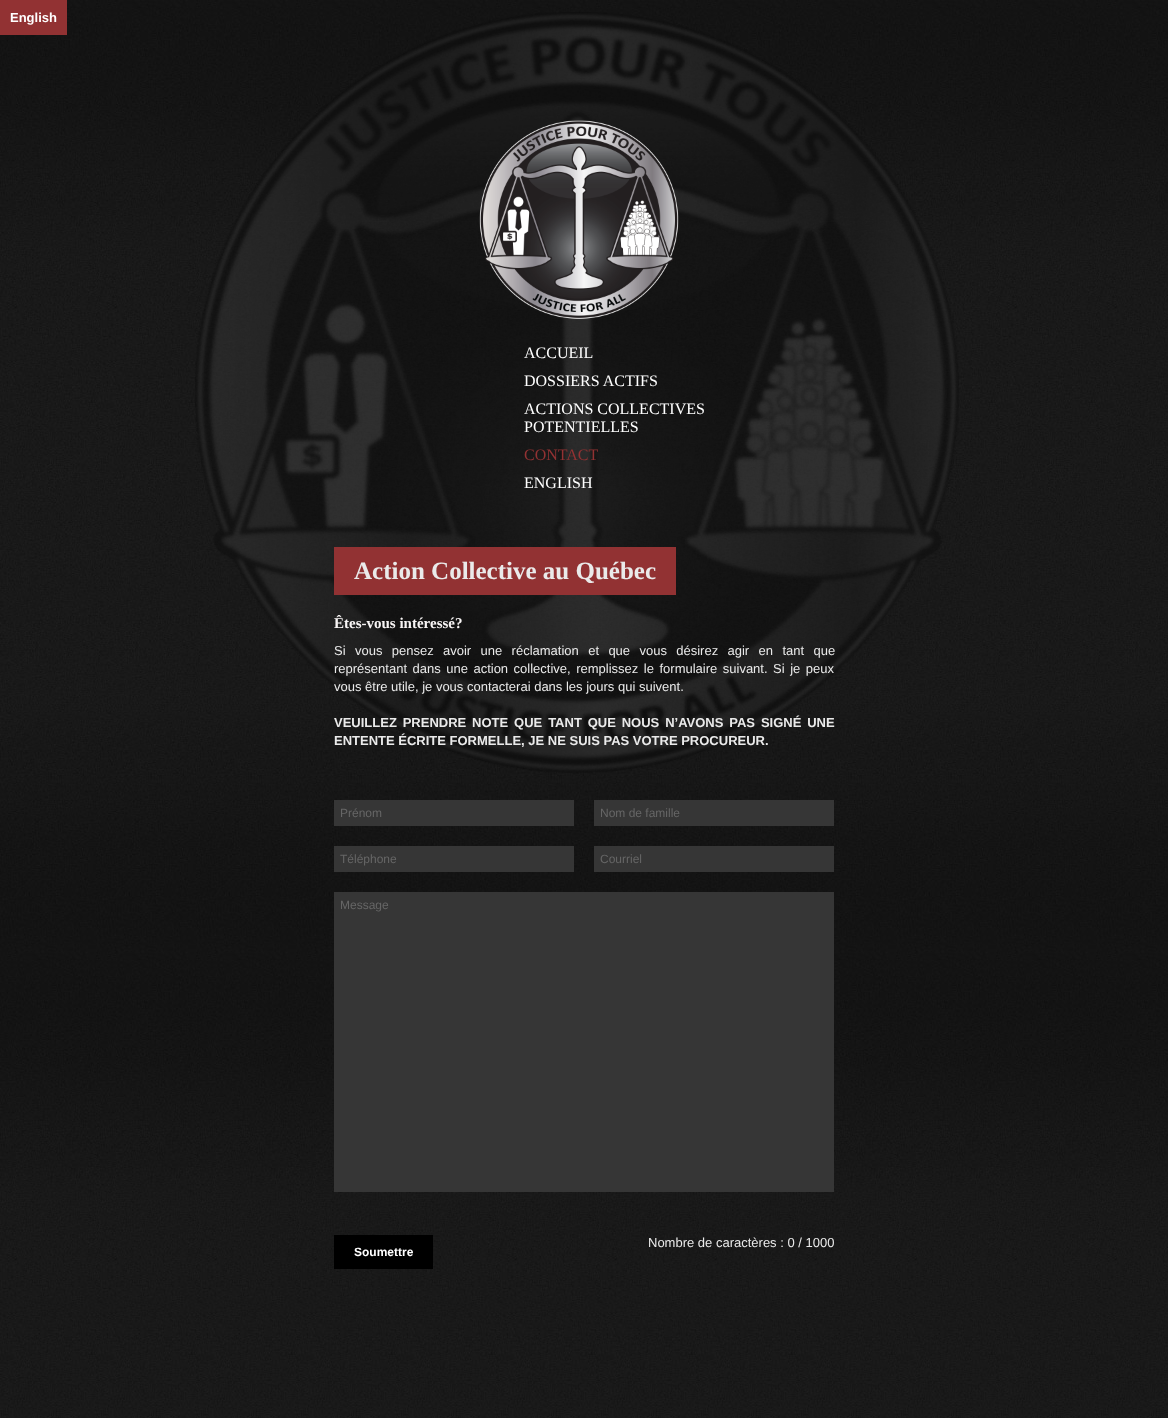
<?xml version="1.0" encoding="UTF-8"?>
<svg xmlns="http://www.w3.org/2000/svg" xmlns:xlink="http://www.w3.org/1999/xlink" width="1168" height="1418">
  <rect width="100%" height="100%" fill="#ffffff" />
  <image x="0" y="0" width="1168" height="1418" xlink:href="image1.png" />
  <rect width="67" height="35" fill="#923233" />
  <image x="195" y="12" width="764" height="761" xlink:href="image2.png" />
  <image x="479" y="120" width="200" height="199" xlink:href="image3.png" />
  <rect x="334" y="547" width="342" height="48" fill="#923233" />
  <rect x="334" y="800" width="240" height="26" fill="#363636" />
  <rect x="594" y="800" width="240" height="26" fill="#363636" />
  <rect x="334" y="846" width="240" height="26" fill="#363636" />
  <rect x="594" y="846" width="240" height="26" fill="#363636" />
  <rect x="334" y="892" width="500" height="300" fill="#363636" />
  <rect x="334" y="1235" width="99" height="34" fill="#000000" />
  <text x="10" y="22" style="font-family: Liberation Sans; font-size: 13px; font-weight: bold; fill: #ffffff">English</text>
  <text x="524" y="358" style="font-family: Liberation Serif; font-size: 16px; fill: #ffffff">ACCUEIL</text>
  <text x="524" y="386" style="font-family: Liberation Serif; font-size: 16px; fill: #ffffff">DOSSIERS ACTIFS</text>
  <text x="524" y="414" style="font-family: Liberation Serif; font-size: 16px; fill: #ffffff">ACTIONS COLLECTIVES</text>
  <text x="524" y="432" style="font-family: Liberation Serif; font-size: 16px; fill: #ffffff">POTENTIELLES</text>
  <text x="524" y="460" style="font-family: Liberation Serif; font-size: 16px; fill: #923233">CONTACT</text>
  <text x="524" y="488" style="font-family: Liberation Serif; font-size: 16px; fill: #ffffff">ENGLISH</text>
  <text x="354" y="579" style="font-family: Liberation Serif; font-size: 25px; font-weight: bold; fill: #eaeaea">Action Collective au Québec</text>
  <text x="334" y="628" style="font-family: Liberation Serif; font-size: 15px; font-weight: bold; fill: #f8f5f5">Êtes-vous intéressé?</text>
  <text x="334" y="655" word-spacing="5.75" style="font-family: Liberation Sans; font-size: 13px; fill: #eaeaea">Si vous pensez avoir une réclamation et que vous désirez agir en tant que</text>
  <text x="334" y="673" word-spacing="1.9" style="font-family: Liberation Sans; font-size: 13px; fill: #eaeaea">représentant dans une action collective, remplissez le formulaire suivant. Si je peux</text>
  <text x="334" y="691" style="font-family: Liberation Sans; font-size: 13px; fill: #eaeaea">vous être utile, je vous contacterai dans les jours qui suivent.</text>
  <text x="334" y="727" word-spacing="2.25" style="font-family: Liberation Sans; font-size: 13px; font-weight: bold; fill: #eaeaea">VEUILLEZ PRENDRE NOTE QUE TANT QUE NOUS N’AVONS PAS SIGNÉ UNE</text>
  <text x="334" y="745" style="font-family: Liberation Sans; font-size: 13px; font-weight: bold; fill: #eaeaea">ENTENTE ÉCRITE FORMELLE, JE NE SUIS PAS VOTRE PROCUREUR.</text>
  <text x="340" y="817" style="font-family: Liberation Sans; font-size: 12px; fill: #666666">Prénom</text>
  <text x="600" y="817" style="font-family: Liberation Sans; font-size: 12px; fill: #666666">Nom de famille</text>
  <text x="340" y="863" style="font-family: Liberation Sans; font-size: 12px; fill: #666666">Téléphone</text>
  <text x="600" y="863" style="font-family: Liberation Sans; font-size: 12px; fill: #666666">Courriel</text>
  <text x="340" y="909" style="font-family: Liberation Sans; font-size: 12px; fill: #666666">Message</text>
  <text x="648" y="1247" style="font-family: Liberation Sans; font-size: 13px; fill: #eaeaea">Nombre de caractères : 0 / 1000</text>
  <text x="354" y="1256" style="font-family: Liberation Sans; font-size: 12px; font-weight: bold; fill: #ffffff">Soumettre</text>
</svg>
